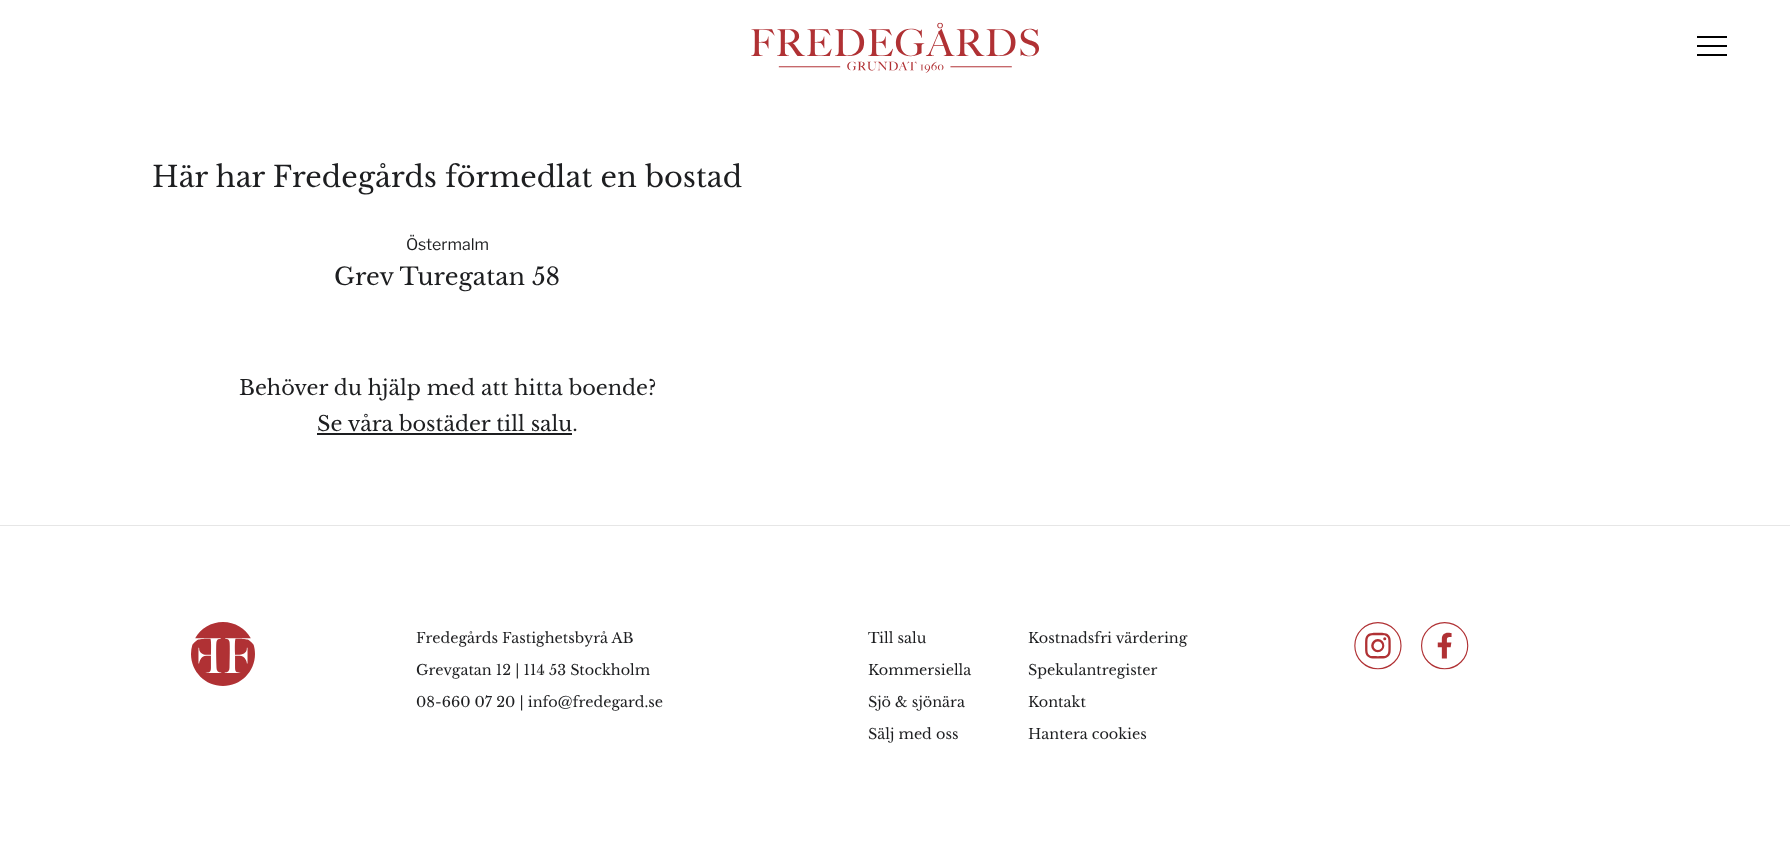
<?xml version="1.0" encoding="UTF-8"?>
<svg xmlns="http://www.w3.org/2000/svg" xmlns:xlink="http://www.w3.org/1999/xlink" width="1790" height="846">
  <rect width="100%" height="100%" fill="#ffffff" />
  <image x="751" y="22" width="288" height="51" xlink:href="image1.png" />
  <rect x="1697" y="45" width="30" height="2" fill="#000000" />
  <rect x="1697" y="36" width="30" height="2" fill="#000000" />
  <rect x="1697" y="54" width="30" height="2" fill="#000000" />
  <rect x="317" y="433" width="255" height="2" fill="#1d1e20" />
  <rect y="525" width="1790" height="1" fill="#e6e6e6" />
  <image x="191" y="622" width="64" height="64" xlink:href="image2.png" />
  <image x="1354" y="622" width="48" height="48" xlink:href="image3.png" />
  <image x="1421" y="622" width="48" height="48" xlink:href="image4.png" />
  <text x="152" y="187" style="font-family: Libre Baskerville; font-size: 28.8px; fill: #1d1e20">Här har Fredegårds förmedlat en bostad</text>
  <text x="406" y="250" style="font-family: Libre Franklin; font-size: 16px; fill: #1d1e20">Östermalm</text>
  <text x="334" y="285" style="font-family: Libre Baskerville; font-size: 24px; fill: #1d1e20">Grev Turegatan 58</text>
  <text x="239" y="395" style="font-family: Libre Baskerville; font-size: 20.8px; fill: #1d1e20">Behöver du hjälp med att hitta boende?</text>
  <text x="317" y="431" style="font-family: Libre Baskerville; font-size: 20.8px; fill: #1d1e20">Se våra bostäder till salu.</text>
  <text x="416" y="643" style="font-family: Libre Baskerville; font-size: 14.4px; fill: #1d1e20">Fredegårds Fastighetsbyrå AB</text>
  <text x="416" y="675" style="font-family: Libre Baskerville; font-size: 14.4px; fill: #1d1e20">Grevgatan 12 | 114 53 Stockholm</text>
  <text x="416" y="707" style="font-family: Libre Baskerville; font-size: 14.4px; fill: #1d1e20">08-660 07 20 | info@fredegard.se</text>
  <text x="868" y="643" style="font-family: Libre Baskerville; font-size: 14.4px; fill: #1d1e20">Till salu</text>
  <text x="1028" y="643" style="font-family: Libre Baskerville; font-size: 14.4px; fill: #1d1e20">Kostnadsfri värdering</text>
  <text x="868" y="675" style="font-family: Libre Baskerville; font-size: 14.4px; fill: #1d1e20">Kommersiella</text>
  <text x="1028" y="675" style="font-family: Libre Baskerville; font-size: 14.4px; fill: #1d1e20">Spekulantregister</text>
  <text x="868" y="707" style="font-family: Libre Baskerville; font-size: 14.4px; fill: #1d1e20">Sjö &amp; sjönära</text>
  <text x="1028" y="707" style="font-family: Libre Baskerville; font-size: 14.4px; fill: #1d1e20">Kontakt</text>
  <text x="868" y="739" style="font-family: Libre Baskerville; font-size: 14.4px; fill: #1d1e20">Sälj med oss</text>
  <text x="1028" y="739" style="font-family: Libre Baskerville; font-size: 14.4px; fill: #1d1e20">Hantera cookies</text>
</svg>
